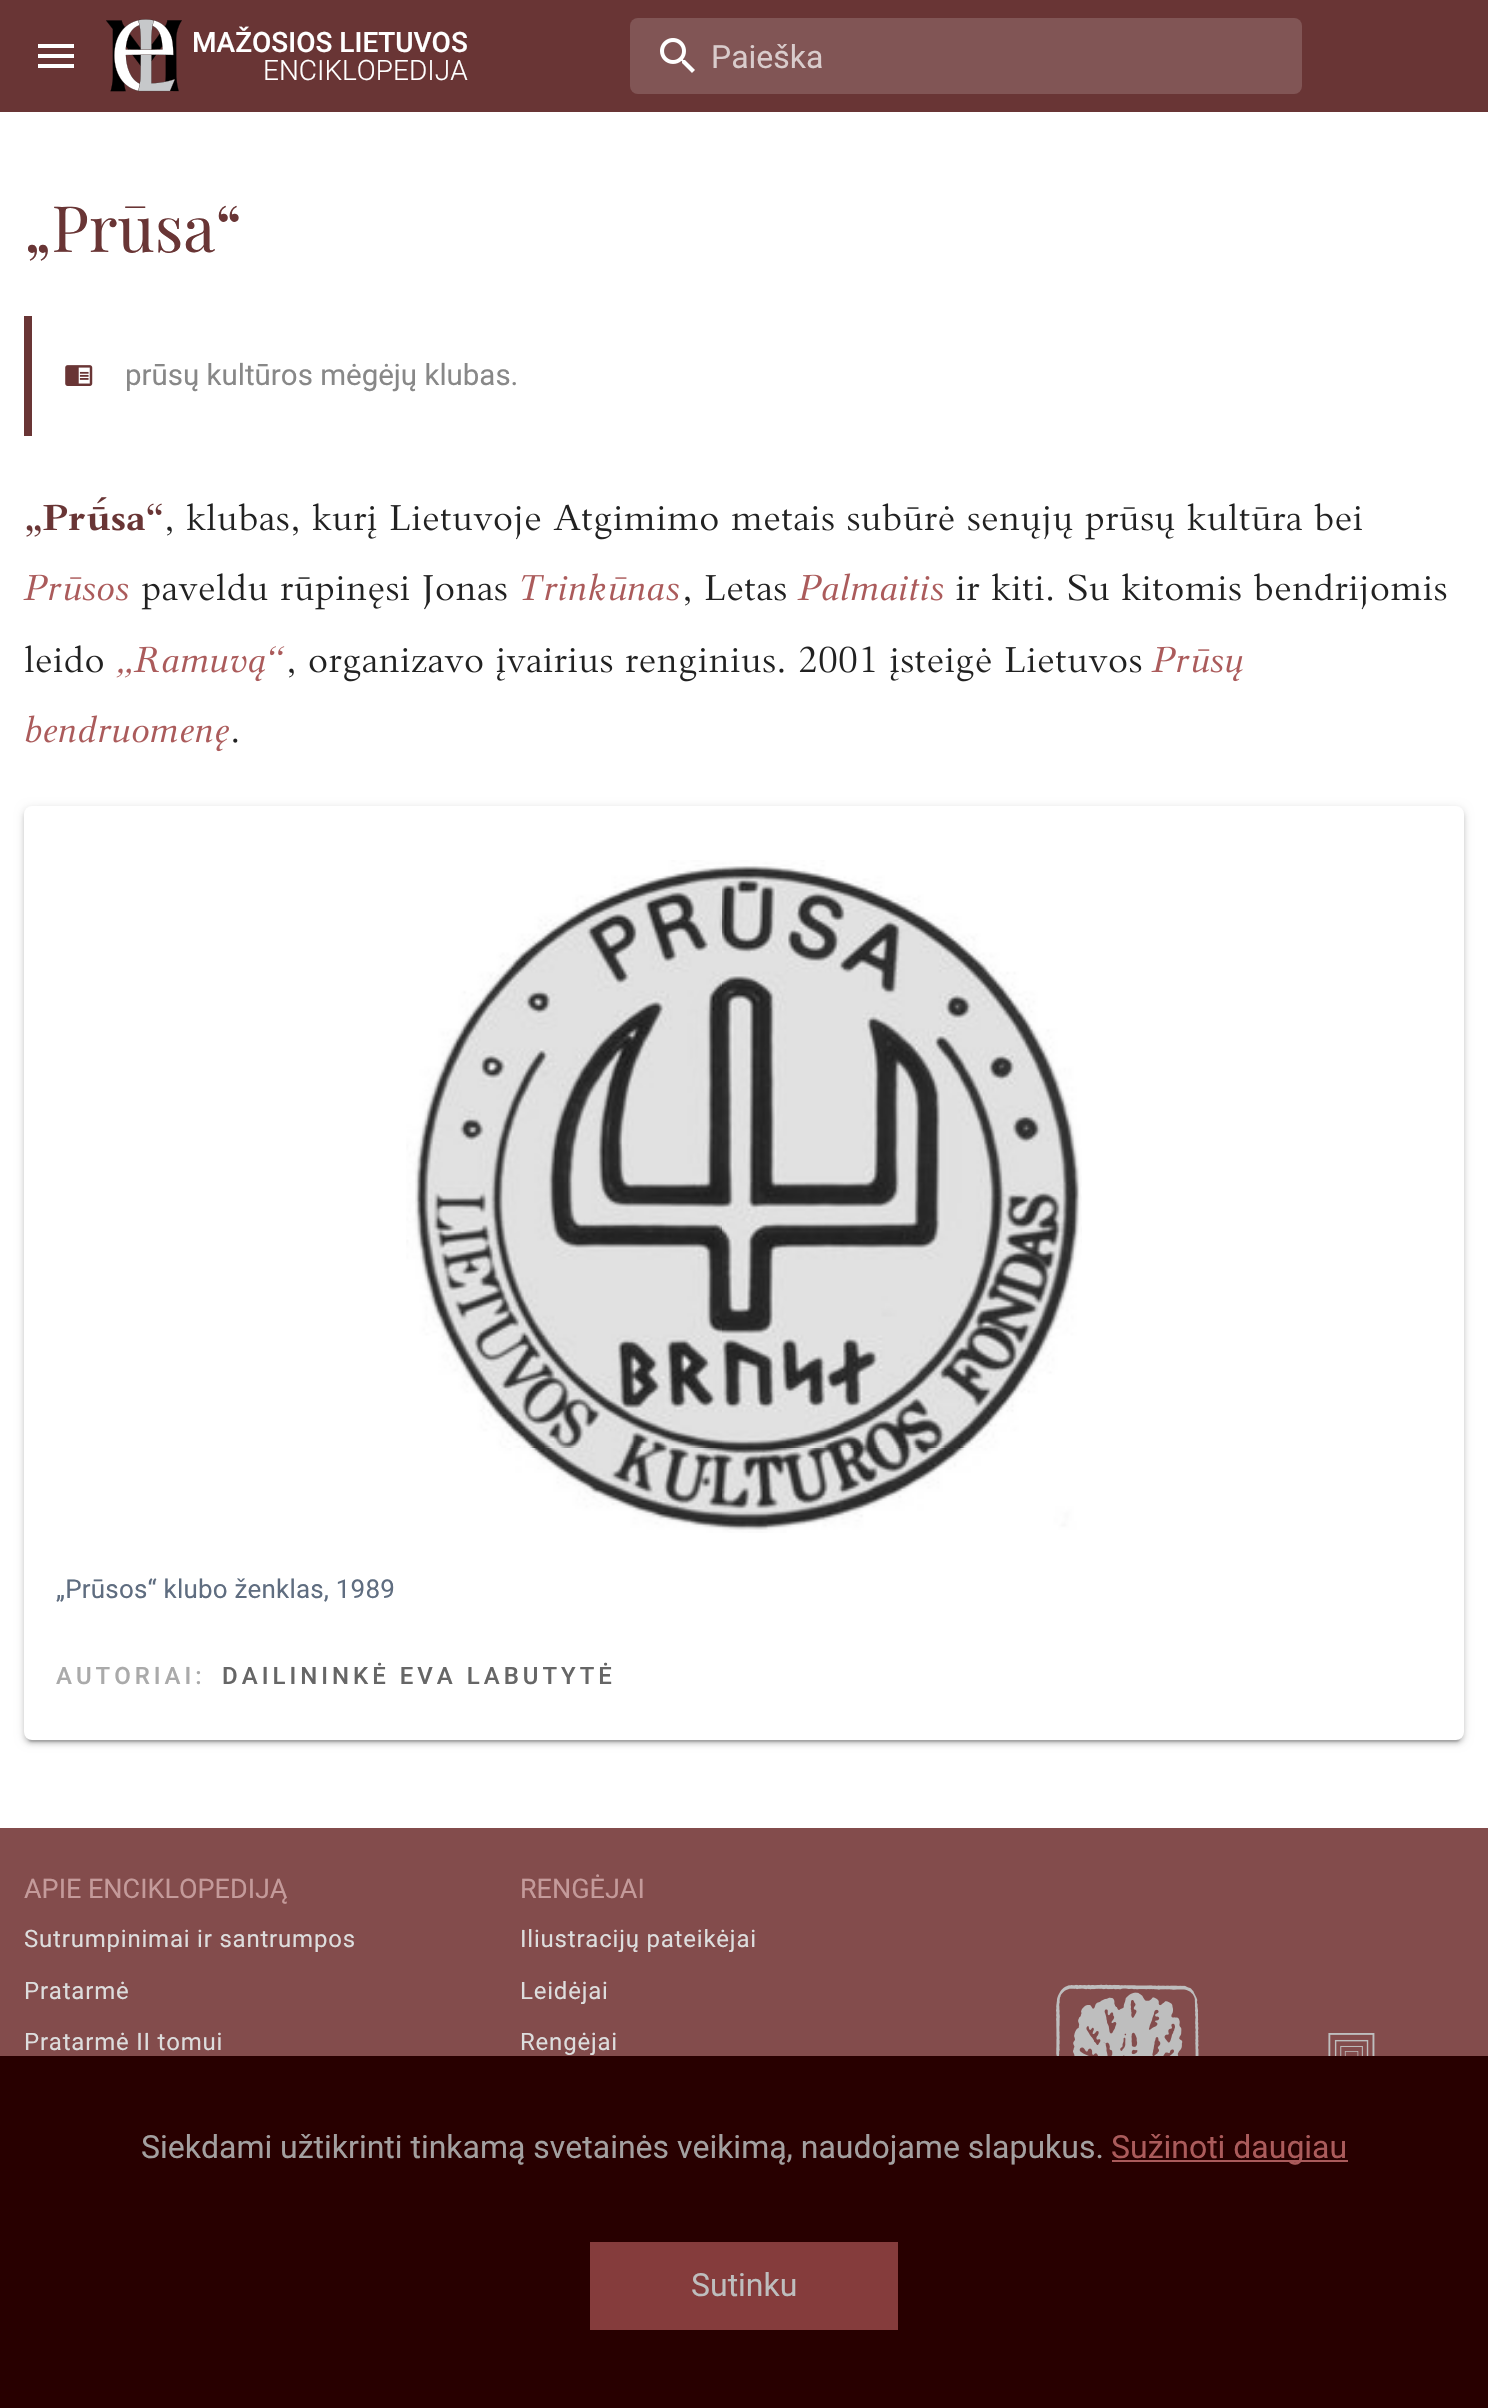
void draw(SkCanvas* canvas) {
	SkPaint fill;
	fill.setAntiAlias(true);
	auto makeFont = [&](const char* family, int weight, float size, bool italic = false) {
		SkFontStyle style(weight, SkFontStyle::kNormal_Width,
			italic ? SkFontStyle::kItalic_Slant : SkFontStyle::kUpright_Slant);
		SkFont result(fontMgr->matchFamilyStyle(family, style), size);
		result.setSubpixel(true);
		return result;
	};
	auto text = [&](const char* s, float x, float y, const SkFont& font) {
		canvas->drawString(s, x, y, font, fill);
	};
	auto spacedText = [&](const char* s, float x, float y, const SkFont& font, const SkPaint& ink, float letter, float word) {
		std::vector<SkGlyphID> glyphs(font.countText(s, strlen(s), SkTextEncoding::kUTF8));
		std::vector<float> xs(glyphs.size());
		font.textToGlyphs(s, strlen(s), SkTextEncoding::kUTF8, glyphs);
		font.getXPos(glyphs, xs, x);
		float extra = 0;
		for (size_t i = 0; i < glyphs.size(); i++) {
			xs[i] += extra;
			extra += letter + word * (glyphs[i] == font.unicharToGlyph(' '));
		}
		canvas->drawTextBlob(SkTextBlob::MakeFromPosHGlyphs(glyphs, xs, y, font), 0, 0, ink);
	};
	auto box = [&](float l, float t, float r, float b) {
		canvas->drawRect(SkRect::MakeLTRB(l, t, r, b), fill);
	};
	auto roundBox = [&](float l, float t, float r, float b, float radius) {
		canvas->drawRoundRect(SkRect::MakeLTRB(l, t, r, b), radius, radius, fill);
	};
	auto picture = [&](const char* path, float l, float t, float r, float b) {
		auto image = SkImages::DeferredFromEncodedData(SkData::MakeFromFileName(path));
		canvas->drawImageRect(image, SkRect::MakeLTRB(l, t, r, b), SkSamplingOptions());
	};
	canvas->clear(0xFFFFFFFF);
	fill.setColor(0xFF693535);
	box(0, 0, 1488, 112);
	fill.setColor(0xFFFFFFFF);
	canvas->drawPath(SkPathBuilder().moveTo(38, 44).lineTo(74, 44).lineTo(74, 48).lineTo(38, 48).close().moveTo(38, 54).lineTo(74, 54).lineTo(74, 58).lineTo(38, 58).close().moveTo(38, 64).lineTo(74, 64).lineTo(74, 68).lineTo(38, 68).close().detach(), fill);
	picture("image0.png", 106, 19, 182, 92);
	fill.setColor(0xFF815555);
	roundBox(630, 18, 1302, 94, 8);
	picture("image1.png", 660, 38, 695, 73);
	fill.setColor(0xFF693535);
	box(24, 316, 32, 436);
	picture("image2.png", 65, 365, 93, 386);
	picture("image3.png", 26, 497, 162, 537);
	picture("image4.png", 167, 526, 172, 536);
	picture("image5.png", 187, 503, 289, 531);
	picture("image6.png", 293, 503, 1362, 540);
	picture("image7.png", 23, 574, 128, 601);
	picture("image8.png", 141, 573, 507, 610);
	picture("image9.png", 521, 573, 679, 601);
	picture("image10.png", 685, 575, 786, 606);
	picture("image11.png", 797, 573, 943, 601);
	picture("image12.png", 956, 573, 1447, 610);
	picture("image13.png", 25, 645, 103, 673);
	picture("image14.png", 116, 646, 285, 682);
	picture("image15.png", 289, 646, 1142, 682);
	picture("image16.png", 1151, 646, 1243, 682);
	picture("image17.png", 25, 715, 229, 752);
	picture("image18.png", 233, 738, 238, 743);
	fill.setColor(0x1F000000);
	fill.setMaskFilter(SkMaskFilter::MakeBlur(kNormal_SkBlurStyle, 5));
	canvas->drawRoundRect(SkRect::MakeLTRB(24, 808, 1464, 1742), 8, 8, fill);
	fill.setMaskFilter(nullptr);
	fill.setColor(0x24000000);
	fill.setMaskFilter(SkMaskFilter::MakeBlur(kNormal_SkBlurStyle, 2));
	canvas->drawRoundRect(SkRect::MakeLTRB(24, 810, 1464, 1744), 8, 8, fill);
	fill.setMaskFilter(nullptr);
	fill.setColor(0x33000000);
	fill.setMaskFilter(SkMaskFilter::MakeBlur(kNormal_SkBlurStyle, 1));
	canvas->drawRoundRect(SkRect::MakeLTRB(28, 816, 1460, 1742), 4, 4, fill);
	fill.setMaskFilter(nullptr);
	fill.setColor(0xFFFFFFFF);
	roundBox(24, 806, 1464, 1740, 8);
	picture("image19.png", 406, 860, 1082, 1533);
	fill.setColor(0xFF834C4C);
	box(0, 1828, 1488, 2056);
	picture("image20.png", 1056, 1984, 1199, 2056);
	picture("image21.png", 1328, 2033, 1375, 2056);
	fill.setColor(0xFF280000);
	box(0, 2056, 1488, 2408);
	fill.setColor(0xFFAB5B5B);
	box(1112, 2160, 1348, 2162);
	fill.setColor(0xFF853C3C);
	box(590, 2242, 898, 2330);
	auto font1 = makeFont("Roboto", 500, 28);
	fill.setColor(0xFFFFFFFF);
	text("MAŽOSIOS LIETUVOS", 192, 52, font1);
	auto font2 = makeFont("Roboto", 300, 28);
	text("ENCIKLOPEDIJA", 263, 80, font2);
	auto font3 = makeFont("Roboto", 400, 32);
	fill.setColor(0xFFD9CCCC);
	text("Paieška", 711, 68, font3);
	auto font4 = makeFont("Playfair Display", 400, 64);
	fill.setColor(0xFF693535);
	text("„Prūsa“", 24, 252, font4);
	auto font5 = makeFont("Roboto", 400, 29.5f);
	fill.setColor(0xFF888888);
	text("prūsų kultūros mėgėjų klubas.", 125, 385, font5);
	auto font6 = makeFont("Roboto", 400, 26);
	fill.setColor(0xFF5F6D80);
	spacedText("„Prūsos“ klubo ženklas, 1989", 56, 1598, font6, fill, 0.2f, 0);
	auto font7 = makeFont("Roboto", 500, 24);
	fill.setColor(0xFFAAAAAA);
	spacedText("AUTORIAI:", 56, 1684, font7, fill, 4, 0);
	fill.setColor(0xFF666666);
	spacedText("DAILININKĖ EVA LABUTYTĖ", 222, 1684, font7, fill, 4, 0);
	auto font8 = makeFont("Roboto", 400, 27);
	fill.setColor(0xFFC49A9A);
	text("APIE ENCIKLOPEDIJĄ", 24, 1898, font8);
	auto font9 = makeFont("Roboto", 400, 24);
	fill.setColor(0xFFDDDDDD);
	spacedText("Sutrumpinimai ir santrumpos", 24, 1947, font9, fill, 0.8f, 0);
	spacedText("Pratarmė", 24, 1999, font9, fill, 0.8f, 0);
	spacedText("Pratarmė II tomui", 24, 2050, font9, fill, 0.8f, 0);
	fill.setColor(0xFFC49A9A);
	text("RENGĖJAI", 520, 1898, font8);
	fill.setColor(0xFFDDDDDD);
	spacedText("Iliustracijų pateikėjai", 520, 1947, font9, fill, 0.8f, 0);
	spacedText("Leidėjai", 520, 1999, font9, fill, 0.8f, 0);
	spacedText("Rengėjai", 520, 2050, font9, fill, 0.8f, 0);
	fill.setColor(0xFFA3A0A0);
	text("Siekdami užtikrinti tinkamą svetainės veikimą, naudojame slapukus.", 141, 2158, font3);
	fill.setColor(0xFFAB5B5B);
	text("Sužinoti daugiau", 1111, 2158, font3);
	fill.setColor(0xFFBEBEBE);
	text("Sutinku", 691, 2296, font3);
}
